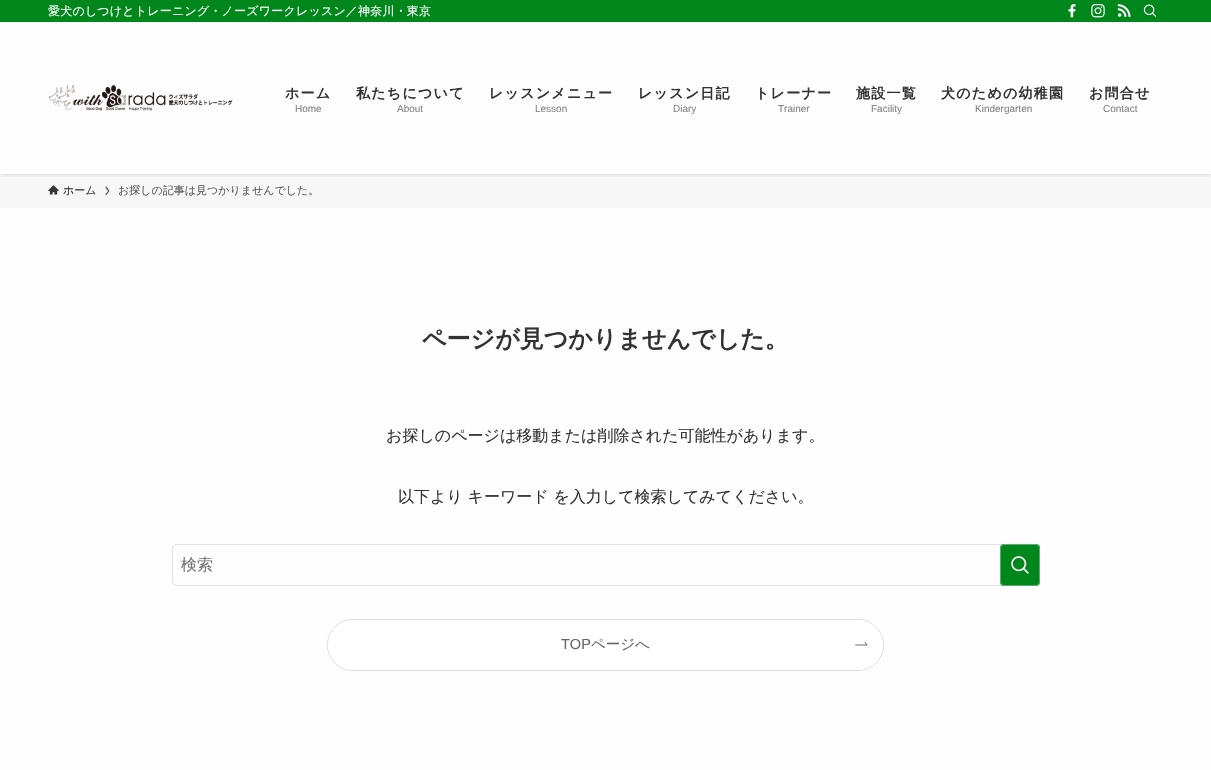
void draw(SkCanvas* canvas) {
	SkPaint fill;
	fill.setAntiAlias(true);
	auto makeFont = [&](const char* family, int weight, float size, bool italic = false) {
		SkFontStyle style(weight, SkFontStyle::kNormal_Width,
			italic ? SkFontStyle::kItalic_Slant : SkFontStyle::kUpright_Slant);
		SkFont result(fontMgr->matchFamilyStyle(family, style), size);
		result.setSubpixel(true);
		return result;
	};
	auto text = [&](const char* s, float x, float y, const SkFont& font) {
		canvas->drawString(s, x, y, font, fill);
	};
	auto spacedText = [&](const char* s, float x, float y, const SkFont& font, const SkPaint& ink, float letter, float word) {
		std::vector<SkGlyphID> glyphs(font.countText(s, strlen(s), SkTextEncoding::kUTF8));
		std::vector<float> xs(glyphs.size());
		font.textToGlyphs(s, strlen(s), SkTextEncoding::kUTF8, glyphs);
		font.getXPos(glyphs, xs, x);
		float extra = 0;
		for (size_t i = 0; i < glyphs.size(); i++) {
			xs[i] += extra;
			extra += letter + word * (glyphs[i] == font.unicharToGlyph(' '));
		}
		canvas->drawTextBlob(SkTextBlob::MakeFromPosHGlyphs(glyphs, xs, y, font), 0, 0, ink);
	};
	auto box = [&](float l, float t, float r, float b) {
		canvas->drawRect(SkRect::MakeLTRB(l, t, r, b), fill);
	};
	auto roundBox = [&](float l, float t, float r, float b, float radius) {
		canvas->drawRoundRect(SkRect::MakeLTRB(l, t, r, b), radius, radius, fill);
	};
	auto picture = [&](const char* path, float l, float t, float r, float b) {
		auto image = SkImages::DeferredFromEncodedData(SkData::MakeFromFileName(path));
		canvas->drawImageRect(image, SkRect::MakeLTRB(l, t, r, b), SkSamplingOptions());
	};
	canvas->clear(0xFFFDFDFD);
	fill.setColor(0xFFF7F7F7);
	box(0, 174, 1211, 208);
	canvas->save();
	canvas->clipRect(SkRect::MakeLTRB(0, 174, 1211, 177));
	fill.setColor(0x1F000000);
	fill.setMaskFilter(SkMaskFilter::MakeBlur(kNormal_SkBlurStyle, 2));
	canvas->drawRect(SkRect::MakeLTRB(0, 1, 1211, 175), fill);
	fill.setMaskFilter(nullptr);
	canvas->restore();
	fill.setColor(0xFF00871B);
	box(0, 0, 1211, 22);
	picture("image0.png", 1068, 4, 1076, 18);
	picture("image1.png", 1091, 4, 1105, 18);
	picture("image2.png", 1117, 4, 1131, 17);
	picture("image3.png", 1143, 4, 1157, 17);
	picture("image4.png", 48, 85, 233, 111);
	picture("image5.png", 48, 185, 59, 195);
	fill.setColor(0xFF5A5A5A);
	canvas->drawPath(SkPathBuilder().moveTo(106.5f, 186.5f).lineTo(105, 187).lineTo(108, 191).lineTo(105, 195).lineTo(106.5f, 195).lineTo(109.5f, 191).close().detach(), fill);
	fill.setStyle(SkPaint::kStroke_Style);
	fill.setStrokeWidth(1);
	fill.setColor(0xFFE3E3E3);
	canvas->drawRoundRect(SkRect::MakeLTRB(172.5f, 544.5f, 1039.5f, 585.5f), 3.5f, 3.5f, fill);
	fill.setStyle(SkPaint::kFill_Style);
	fill.setColor(0xFF00871B);
	roundBox(1000, 544, 1040, 586, 4);
	fill.setStyle(SkPaint::kStroke_Style);
	fill.setColor(0x80C7C7C7);
	canvas->drawRoundRect(SkRect::MakeLTRB(1000.5f, 544.5f, 1039.5f, 585.5f), 3.5f, 3.5f, fill);
	picture("image6.png", 1011, 556, 1029, 574);
	fill.setColor(0xFFDCDCDC);
	canvas->drawRoundRect(SkRect::MakeLTRB(327.5f, 619.5f, 883.5f, 670.5f), 25.5f, 25.5f, fill);
	fill.setStyle(SkPaint::kFill_Style);
	fill.setColor(0xFFFFFFFF);
	roundBox(328, 620, 883, 670, 25);
	picture("image7.png", 855, 642, 868, 646);
	auto font1 = makeFont("WenQuanYi Zen Hei", 500, 12);
	spacedText("愛犬のしつけとトレーニング・ノーズワークレッスン／神奈川・東京", 48, 15, font1, fill, 0.2f, 0);
	auto font2 = makeFont("WenQuanYi Zen Hei", 700, 14);
	fill.setColor(0xFF333333);
	spacedText("ホーム", 285, 98, font2, fill, 1.25f, 0);
	auto font3 = makeFont("Liberation Sans", 400, 10);
	fill.setColor(0xFF848484);
	text("Home", 295, 112, font3);
	fill.setColor(0xFF333333);
	spacedText("私たちについて", 356, 98, font2, fill, 1.25f, 0);
	fill.setColor(0xFF848484);
	text("About", 397, 112, font3);
	fill.setColor(0xFF333333);
	spacedText("レッスンメニュー", 489, 98, font2, fill, 1.25f, 0);
	fill.setColor(0xFF848484);
	text("Lesson", 535, 112, font3);
	fill.setColor(0xFF333333);
	spacedText("レッスン日記", 638, 98, font2, fill, 1.25f, 0);
	fill.setColor(0xFF848484);
	text("Diary", 673, 112, font3);
	fill.setColor(0xFF333333);
	spacedText("トレーナー", 755, 98, font2, fill, 1.25f, 0);
	fill.setColor(0xFF848484);
	text("Trainer", 778, 112, font3);
	fill.setColor(0xFF333333);
	spacedText("施設一覧", 856, 98, font2, fill, 1.25f, 0);
	fill.setColor(0xFF848484);
	text("Facility", 871, 112, font3);
	fill.setColor(0xFF333333);
	spacedText("犬のための幼稚園", 941, 98, font2, fill, 1.25f, 0);
	fill.setColor(0xFF848484);
	text("Kindergarten", 975, 112, font3);
	fill.setColor(0xFF333333);
	spacedText("お問合せ", 1089, 98, font2, fill, 1.25f, 0);
	fill.setColor(0xFF848484);
	text("Contact", 1103, 112, font3);
	auto font4 = makeFont("WenQuanYi Zen Hei", 500, 11);
	fill.setColor(0xFF333333);
	text("ホーム", 63, 194, font4);
	fill.setColor(0xFF5A5A5A);
	text("お探しの記事は見つかりませんでした。", 118, 194, font4);
	auto font5 = makeFont("WenQuanYi Zen Hei", 700, 24);
	fill.setColor(0xFF333333);
	text("ページが見つかりませんでした。", 422, 347, font5);
	auto font6 = makeFont("WenQuanYi Zen Hei", 500, 16);
	text("お探しのページは移動または削除された可能性があります。", 386, 441, font6);
	text("以下より キーワード を入力して検索してみてください。", 398, 502, font6);
	fill.setColor(0xFF757575);
	text("検索", 181, 570, font6);
	auto font7 = makeFont("Liberation Sans", 400, 14.5f);
	fill.setColor(0xFF666666);
	text("TOP", 561, 649, font7);
	auto font8 = makeFont("WenQuanYi Zen Hei", 500, 14.5f);
	text("ページへ", 591, 649, font8);
}
